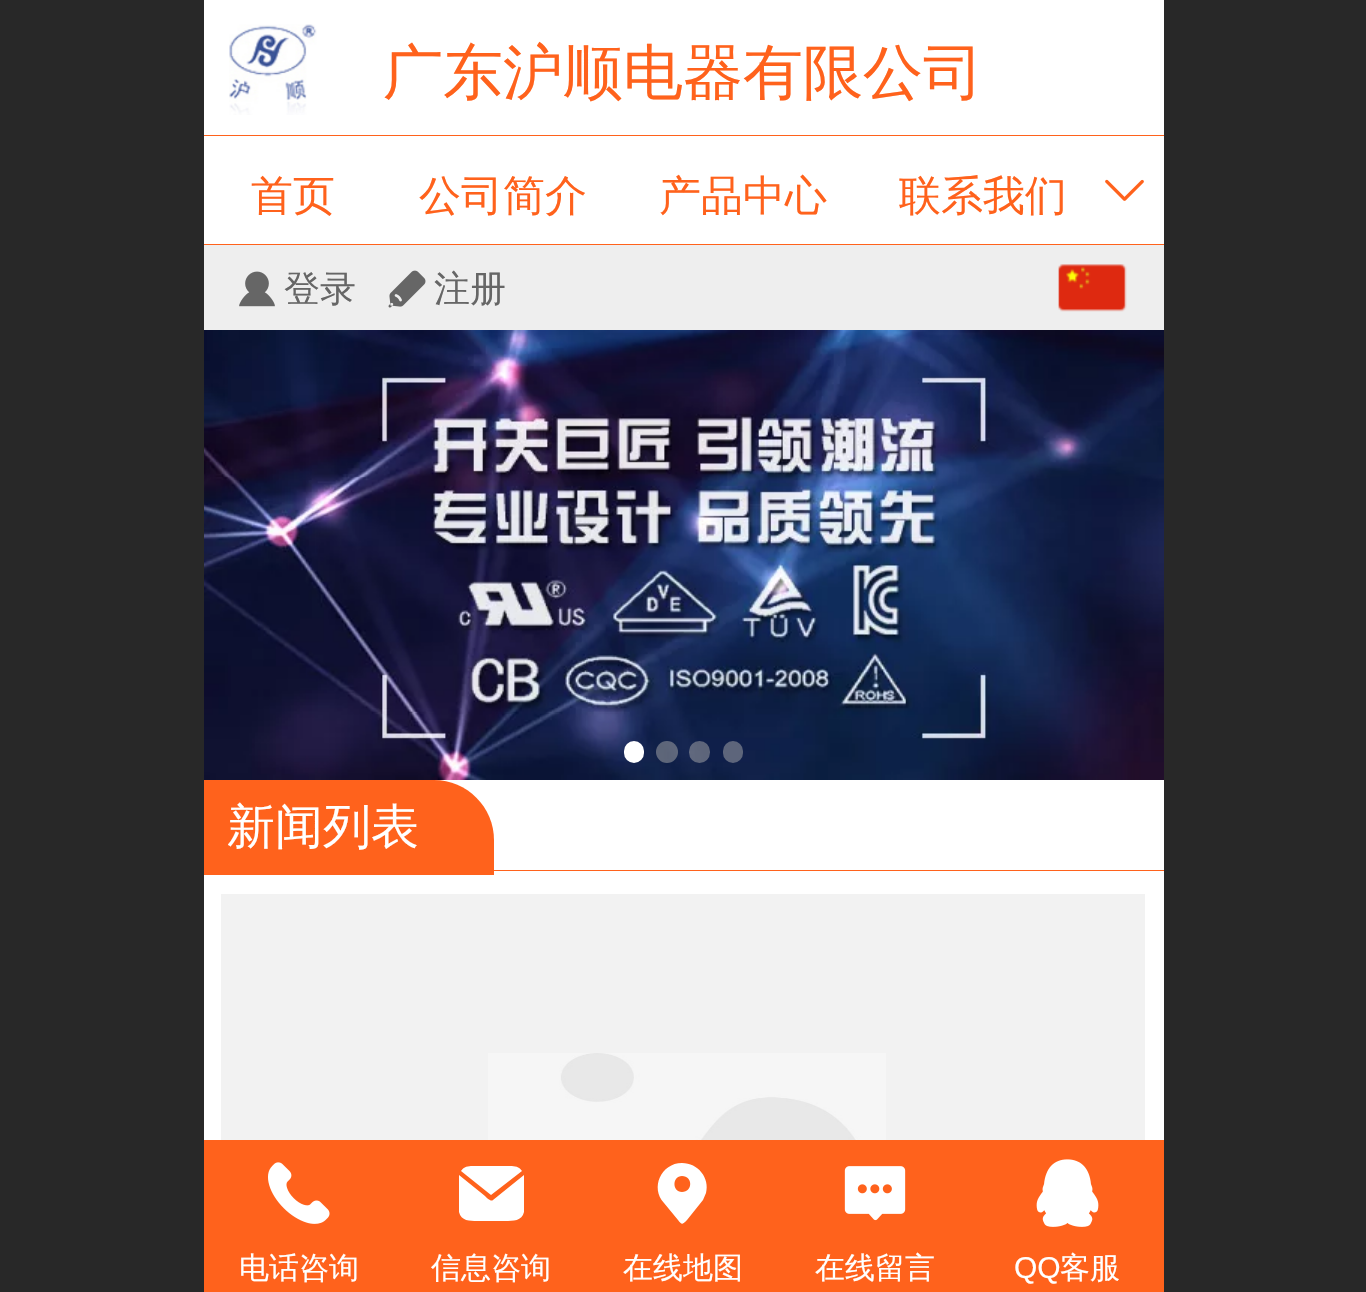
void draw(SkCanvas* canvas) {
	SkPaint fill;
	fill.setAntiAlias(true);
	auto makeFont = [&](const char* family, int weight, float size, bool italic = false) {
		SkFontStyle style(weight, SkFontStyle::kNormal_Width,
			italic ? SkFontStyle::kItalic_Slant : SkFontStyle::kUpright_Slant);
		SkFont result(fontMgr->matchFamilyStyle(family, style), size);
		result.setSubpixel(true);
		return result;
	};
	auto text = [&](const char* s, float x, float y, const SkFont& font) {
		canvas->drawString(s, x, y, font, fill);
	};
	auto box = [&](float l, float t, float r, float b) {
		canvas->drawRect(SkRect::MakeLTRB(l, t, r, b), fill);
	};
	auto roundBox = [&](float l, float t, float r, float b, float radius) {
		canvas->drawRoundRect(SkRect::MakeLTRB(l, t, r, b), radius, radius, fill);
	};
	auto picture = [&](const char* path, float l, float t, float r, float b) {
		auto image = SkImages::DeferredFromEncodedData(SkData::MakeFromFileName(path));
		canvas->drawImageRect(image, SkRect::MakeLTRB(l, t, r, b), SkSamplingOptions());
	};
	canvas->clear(0xFFFFFFFF);
	fill.setColor(0xFF282828);
	box(0, 0, 204, 1292);
	fill.setColor(0xFFFF621C);
	box(204, 135, 1164, 136);
	picture("image0.png", 229, 24, 317, 115);
	box(204, 244, 1164, 245);
	picture("image1.png", 1105, 179, 1144, 201);
	fill.setColor(0xFFEEEEEE);
	box(204, 245, 1164, 330);
	picture("image2.png", 239, 271, 275, 307);
	picture("image3.png", 388, 270, 426, 308);
	picture("image4.png", 1058, 264, 1127, 312);
	picture("image5.png", 204, 330, 1164, 780);
	fill.setColor(0xFFFFFFFF);
	roundBox(624, 741, 644, 763, 10);
	fill.setColor(0x80ABABAB);
	canvas->drawCircle(667, 752, 11, fill);
	roundBox(689, 741, 710, 763, 10.5f);
	fill.setColor(0xFF5D657B);
	roundBox(723, 741, 743, 763, 10);
	fill.setColor(0xFFFF621C);
	box(494, 870, 1164, 871);
	canvas->drawPath(SkPathBuilder().moveTo(204, 780).lineTo(434, 780).cubicTo(467, 780, 494, 807, 494, 840).lineTo(494, 875).lineTo(204, 875).close().detach(), fill);
	fill.setColor(0xFFF2F2F2);
	box(221, 894, 1145, 1140);
	picture("image6.png", 488, 1053, 886, 1140);
	fill.setColor(0xFFFF621C);
	box(204, 1140, 1164, 1292);
	picture("image7.png", 268, 1162, 330, 1224);
	fill.setColor(0xFFFFFFFF);
	canvas->drawPath(SkPathBuilder().moveTo(491, 1195).lineTo(522, 1171).cubicTo(518, 1165, 512, 1166, 505, 1166).lineTo(477, 1166).cubicTo(471, 1166, 465, 1165, 461, 1171).close().moveTo(493, 1200).cubicTo(491, 1202, 487, 1198, 485, 1196).lineTo(459, 1175).lineTo(459, 1212).cubicTo(461, 1221, 470, 1221, 477, 1221).lineTo(505, 1221).cubicTo(513, 1221, 522, 1221, 524, 1212).lineTo(524, 1175).close().detach(), fill);
	canvas->drawPath(SkPathBuilder().moveTo(682, 1163).cubicTo(661, 1163, 650, 1188, 664, 1203).lineTo(678, 1220).cubicTo(682, 1225, 682, 1225, 687, 1220).lineTo(703, 1200).lineTo(706, 1193).cubicTo(710, 1178, 698, 1163, 682, 1163).close().moveTo(682, 1192).cubicTo(672, 1192, 672, 1176, 682, 1176).cubicTo(693, 1176, 693, 1192, 682, 1192).close().detach(), fill);
	picture("image8.png", 844, 1166, 906, 1221);
	picture("image9.png", 1036, 1159, 1099, 1227);
	fill.setColor(0xFF282828);
	box(1164, 0, 1366, 1292);
	auto font1 = makeFont("WenQuanYi Zen Hei", 500, 60);
	fill.setColor(0xFFFF621C);
	text("广东沪顺电器有限公司", 383, 93, font1);
	auto font2 = makeFont("WenQuanYi Zen Hei", 500, 42);
	text("首页", 251, 210, font2);
	text("公司简介", 419, 210, font2);
	text("产品中心", 659, 210, font2);
	text("联系我们", 899, 210, font2);
	auto font3 = makeFont("WenQuanYi Zen Hei", 500, 36);
	fill.setColor(0xFF666666);
	text("登录", 284, 301, font3);
	text("注册", 434, 301, font3);
	auto font4 = makeFont("WenQuanYi Zen Hei", 500, 48);
	fill.setColor(0xFFFFFFFF);
	text("新闻列表", 227, 843, font4);
	auto font5 = makeFont("WenQuanYi Zen Hei", 500, 30);
	text("电话咨询", 239, 1278, font5);
	text("信息咨询", 431, 1278, font5);
	text("在线地图", 623, 1278, font5);
	text("在线留言", 815, 1278, font5);
	auto font6 = makeFont("Liberation Sans", 400, 30);
	text("QQ", 1014, 1278, font6);
	text("客服", 1060, 1278, font5);
}
